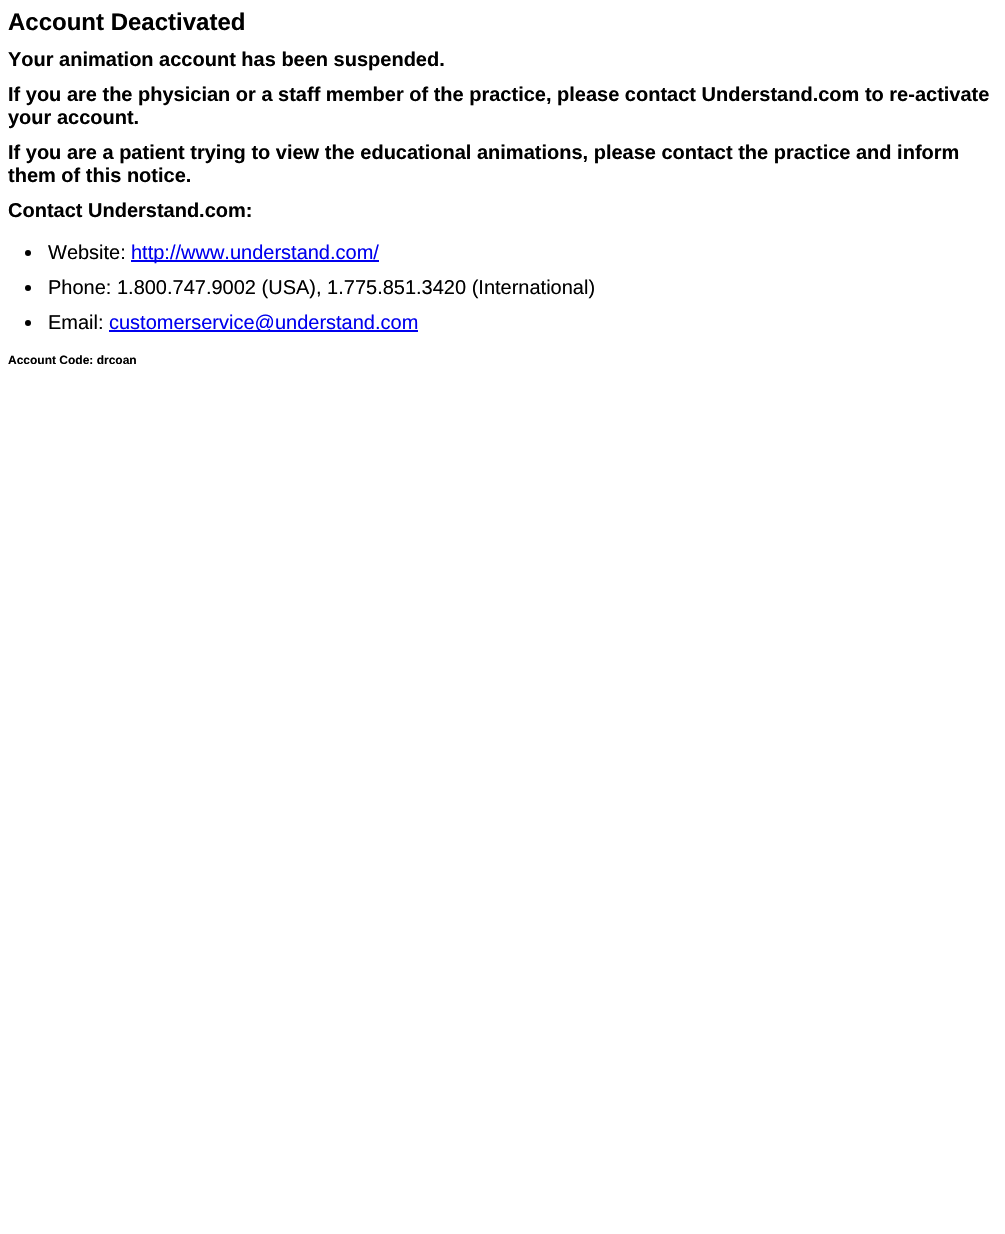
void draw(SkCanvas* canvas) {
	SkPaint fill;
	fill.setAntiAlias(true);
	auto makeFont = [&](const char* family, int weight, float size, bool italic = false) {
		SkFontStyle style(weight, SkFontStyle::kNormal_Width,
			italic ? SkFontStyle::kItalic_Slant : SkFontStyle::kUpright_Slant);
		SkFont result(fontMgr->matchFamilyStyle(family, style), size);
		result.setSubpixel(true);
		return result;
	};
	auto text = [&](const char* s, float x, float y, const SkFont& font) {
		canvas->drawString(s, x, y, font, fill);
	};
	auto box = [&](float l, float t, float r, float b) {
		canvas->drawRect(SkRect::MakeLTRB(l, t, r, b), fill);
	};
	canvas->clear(0xFFFFFFFF);
	fill.setColor(0xFF000000);
	canvas->drawCircle(28, 253, 3, fill);
	fill.setColor(0xFF0000EE);
	box(131, 260, 379, 262);
	fill.setColor(0xFF000000);
	canvas->drawCircle(28, 288, 3, fill);
	canvas->drawCircle(28, 323, 3, fill);
	fill.setColor(0xFF0000EE);
	box(109, 330, 418, 332);
	auto font1 = makeFont("Liberation Sans", 700, 24);
	fill.setColor(0xFF000000);
	text("Account Deactivated", 8, 30, font1);
	auto font2 = makeFont("Liberation Sans", 700, 20);
	text("Your animation account has been suspended.", 8, 66, font2);
	text("If you are the physician or a staff member of the practice, please contact Understand.com to re-activate", 8, 101, font2);
	text("your account.", 8, 124, font2);
	text("If you are a patient trying to view the educational animations, please contact the practice and inform", 8, 159, font2);
	text("them of this notice.", 8, 182, font2);
	text("Contact Understand.com:", 8, 217, font2);
	auto font3 = makeFont("Liberation Sans", 400, 20);
	text("Website:", 48, 259, font3);
	fill.setColor(0xFF0000EE);
	text("http://www.understand.com/", 131, 259, font3);
	fill.setColor(0xFF000000);
	text("Phone: 1.800.747.9002 (USA), 1.775.851.3420 (International)", 48, 294, font3);
	text("Email:", 48, 329, font3);
	fill.setColor(0xFF0000EE);
	text("customerservice@understand.com", 109, 329, font3);
	auto font4 = makeFont("Liberation Sans", 700, 12);
	fill.setColor(0xFF000000);
	text("Account Code: drcoan", 8, 364, font4);
}
